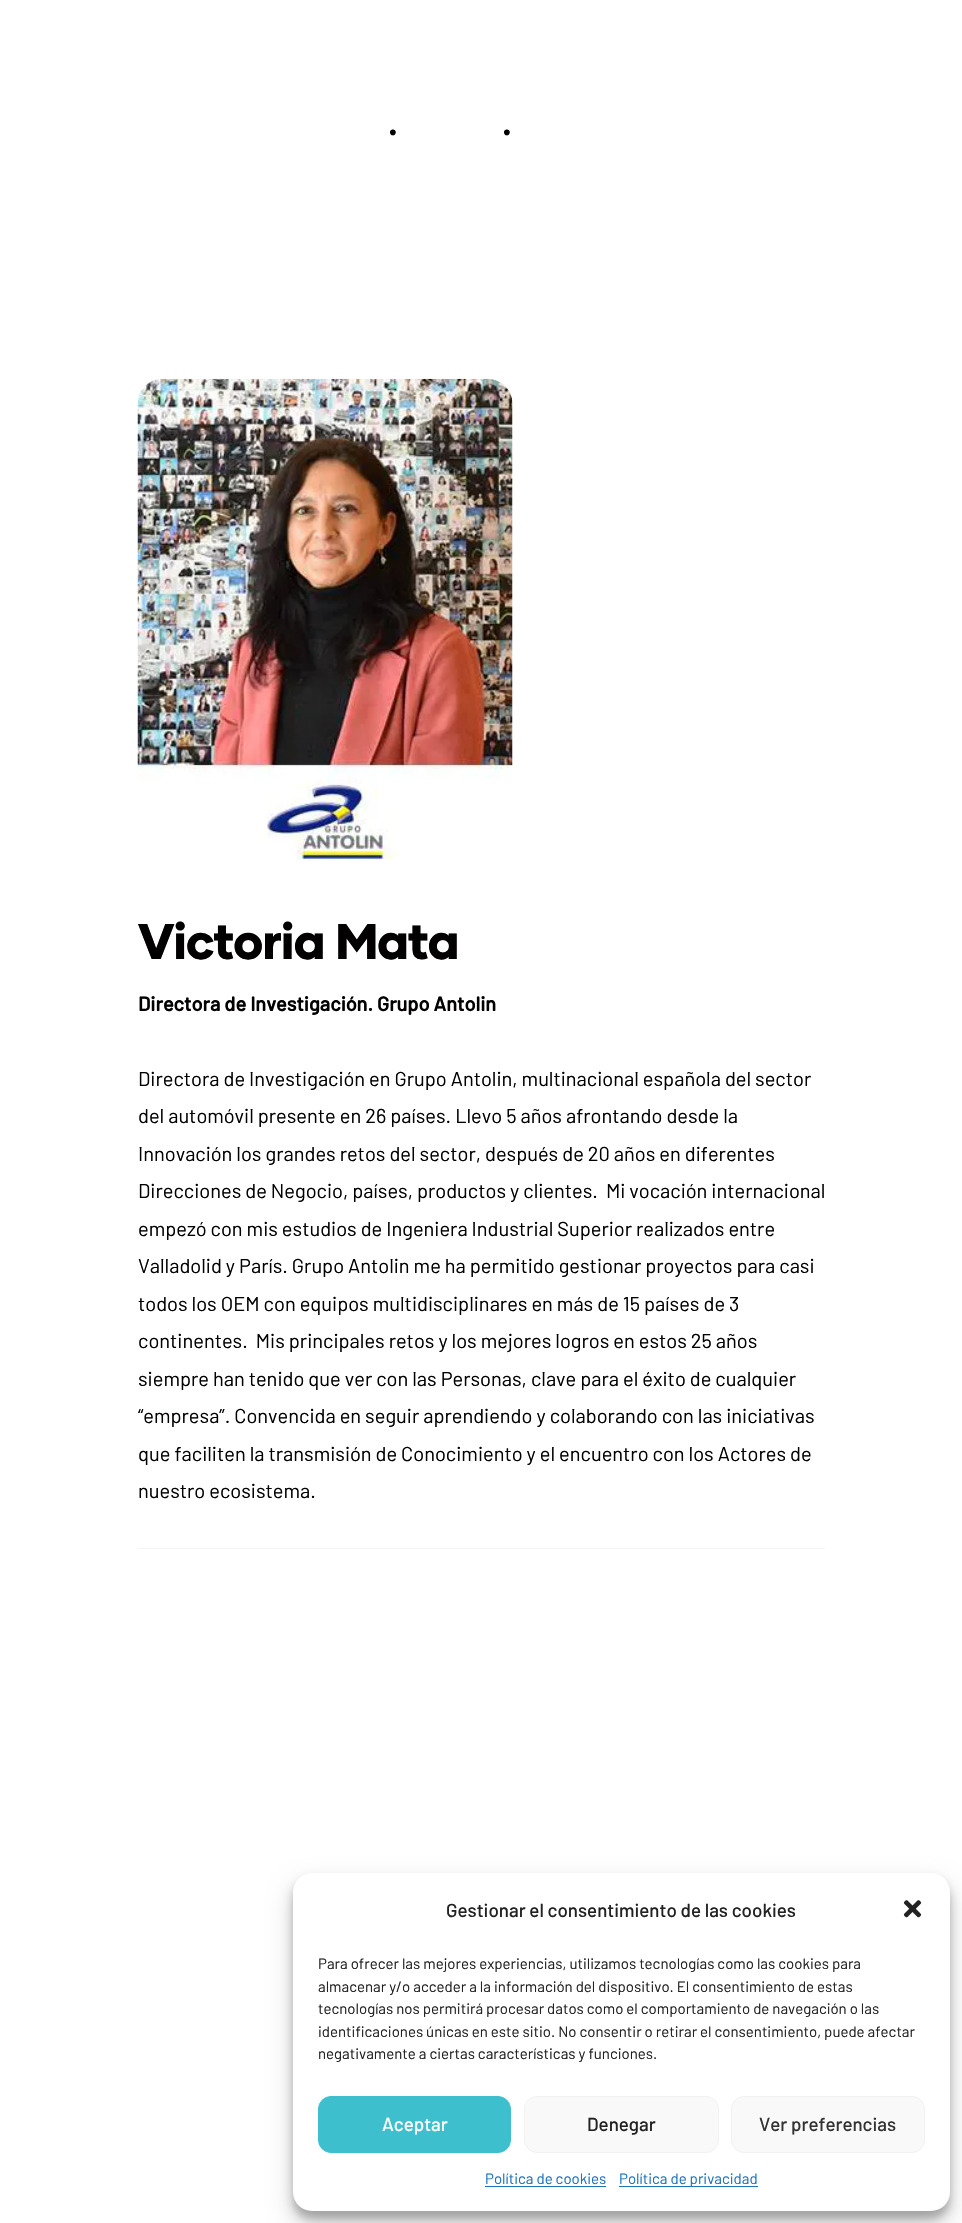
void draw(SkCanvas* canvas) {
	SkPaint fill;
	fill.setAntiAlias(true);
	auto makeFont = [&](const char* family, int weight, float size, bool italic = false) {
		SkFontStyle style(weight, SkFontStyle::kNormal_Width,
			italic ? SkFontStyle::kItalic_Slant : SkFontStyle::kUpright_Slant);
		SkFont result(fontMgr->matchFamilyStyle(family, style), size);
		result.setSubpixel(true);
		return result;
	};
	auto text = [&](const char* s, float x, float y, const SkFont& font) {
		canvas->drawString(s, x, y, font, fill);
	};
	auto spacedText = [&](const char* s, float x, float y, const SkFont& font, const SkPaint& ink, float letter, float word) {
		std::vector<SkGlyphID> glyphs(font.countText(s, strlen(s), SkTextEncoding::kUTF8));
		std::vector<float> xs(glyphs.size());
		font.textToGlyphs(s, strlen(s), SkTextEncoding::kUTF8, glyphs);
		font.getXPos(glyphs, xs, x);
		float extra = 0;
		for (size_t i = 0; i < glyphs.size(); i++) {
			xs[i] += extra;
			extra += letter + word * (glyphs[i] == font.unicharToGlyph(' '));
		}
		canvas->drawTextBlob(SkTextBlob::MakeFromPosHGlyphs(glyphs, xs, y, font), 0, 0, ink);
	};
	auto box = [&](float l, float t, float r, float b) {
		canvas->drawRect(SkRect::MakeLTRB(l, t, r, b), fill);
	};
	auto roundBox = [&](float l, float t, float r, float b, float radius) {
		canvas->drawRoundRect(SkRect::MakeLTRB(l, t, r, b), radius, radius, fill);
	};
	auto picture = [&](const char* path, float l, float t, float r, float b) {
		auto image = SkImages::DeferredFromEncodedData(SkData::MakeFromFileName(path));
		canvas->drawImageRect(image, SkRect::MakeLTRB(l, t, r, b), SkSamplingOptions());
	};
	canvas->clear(0xFFFFFFFF);
	picture("image0.png", 137, 378, 513, 860);
	fill.setColor(0xFFF4F4F4);
	box(138, 1548, 825, 1549);
	fill.setColor(0x3B000000);
	fill.setMaskFilter(SkMaskFilter::MakeBlur(kNormal_SkBlurStyle, 4));
	canvas->drawRoundRect(SkRect::MakeLTRB(293, 1880, 950, 2219), 19, 19, fill);
	fill.setMaskFilter(nullptr);
	fill.setColor(0x30000000);
	fill.setMaskFilter(SkMaskFilter::MakeBlur(kNormal_SkBlurStyle, 12.5f));
	canvas->drawRoundRect(SkRect::MakeLTRB(293, 1885, 950, 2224), 19, 19, fill);
	fill.setMaskFilter(nullptr);
	fill.setColor(0xFFFFFFFF);
	roundBox(293, 1873, 950, 2211, 19);
	picture("image1.png", 903, 1900, 922, 1918);
	fill.setColor(0xFF3EBFCE);
	canvas->drawRoundRect(SkRect::MakeLTRB(318.5f, 2096.5f, 510.5f, 2152.5f), 12.5f, 12.5f, fill);
	fill.setStyle(SkPaint::kStroke_Style);
	fill.setStrokeWidth(1);
	canvas->drawRoundRect(SkRect::MakeLTRB(318.5f, 2096.5f, 510.5f, 2152.5f), 12.5f, 12.5f, fill);
	fill.setStyle(SkPaint::kFill_Style);
	fill.setColor(0xFFF9F9F9);
	canvas->drawRoundRect(SkRect::MakeLTRB(524.5f, 2096.5f, 718.5f, 2152.5f), 12.5f, 12.5f, fill);
	fill.setStyle(SkPaint::kStroke_Style);
	fill.setColor(0xFFF2F2F2);
	canvas->drawRoundRect(SkRect::MakeLTRB(524.5f, 2096.5f, 718.5f, 2152.5f), 12.5f, 12.5f, fill);
	fill.setStyle(SkPaint::kFill_Style);
	fill.setColor(0xFFF9F9F9);
	canvas->drawRoundRect(SkRect::MakeLTRB(731.5f, 2096.5f, 924.5f, 2152.5f), 12.5f, 12.5f, fill);
	fill.setStyle(SkPaint::kStroke_Style);
	fill.setColor(0xFFF2F2F2);
	canvas->drawRoundRect(SkRect::MakeLTRB(731.5f, 2096.5f, 924.5f, 2152.5f), 12.5f, 12.5f, fill);
	fill.setStyle(SkPaint::kFill_Style);
	fill.setColor(0xFF1E73BE);
	box(485, 2186, 606, 2187);
	box(619, 2186, 758, 2187);
	auto font1 = makeFont("Barlow", 400, 25);
	fill.setColor(0xFF020000);
	text("•", 389, 139, font1);
	text("•", 503, 139, font1);
	auto font2 = makeFont("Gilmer", 900, 50);
	spacedText("Victoria Mata", 138, 959, font2, fill, -1.25f, 0);
	auto font3 = makeFont("Barlow", 700, 20);
	text("Directora de Investigación. Grupo Antolin", 138, 1011, font3);
	auto font4 = makeFont("Barlow", 400, 20);
	text("Directora de Investigación en Grupo Antolin, multinacional española del sector", 138, 1086, font4);
	text("del automóvil presente en 26 países. Llevo 5 años afrontando desde la", 138, 1123, font4);
	text("Innovación los grandes retos del sector, después de 20 años en diferentes", 138, 1161, font4);
	text("Direcciones de Negocio, países, productos y clientes.  Mi vocación internacional", 138, 1198, font4);
	text("empezó con mis estudios de Ingeniera Industrial Superior realizados entre", 138, 1236, font4);
	text("Valladolid y París. Grupo Antolin me ha permitido gestionar proyectos para casi", 138, 1273, font4);
	text("todos los OEM con equipos multidisciplinares en más de 15 países de 3", 138, 1311, font4);
	text("continentes.  Mis principales retos y los mejores logros en estos 25 años", 138, 1348, font4);
	text("siempre han tenido que ver con las Personas, clave para el éxito de cualquier", 138, 1386, font4);
	text("“empresa”. Convencida en seguir aprendiendo y colaborando con las iniciativas", 138, 1423, font4);
	text("que faciliten la transmisión de Conocimiento y el encuentro con los Actores de", 138, 1461, font4);
	text("nuestro ecosistema.", 138, 1498, font4);
	auto font5 = makeFont("Barlow", 500, 18.75f);
	fill.setColor(0xFF222222);
	text("Gestionar el consentimiento de las cookies", 446, 1917, font5);
	auto font6 = makeFont("Barlow", 400, 15);
	text("Para ofrecer las mejores experiencias, utilizamos tecnologías como las cookies para", 318, 1969, font6);
	text("almacenar y/o acceder a la información del dispositivo. El consentimiento de estas", 318, 1992, font6);
	text("tecnologías nos permitirá procesar datos como el comportamiento de navegación o las", 318, 2014, font6);
	text("identificaciones únicas en este sitio. No consentir o retirar el consentimiento, puede afectar", 318, 2037, font6);
	text("negativamente a ciertas características y funciones.", 318, 2059, font6);
	fill.setColor(0xFFFFFFFF);
	text("Aceptar", 382, 2131, font5);
	fill.setColor(0xFF222222);
	text("Denegar", 587, 2131, font5);
	fill.setColor(0xFF333333);
	text("Ver preferencias", 759, 2131, font5);
	fill.setColor(0xFF1E73BE);
	text("Política de cookies", 485, 2184, font6);
	text("Política de privacidad", 619, 2184, font6);
}
